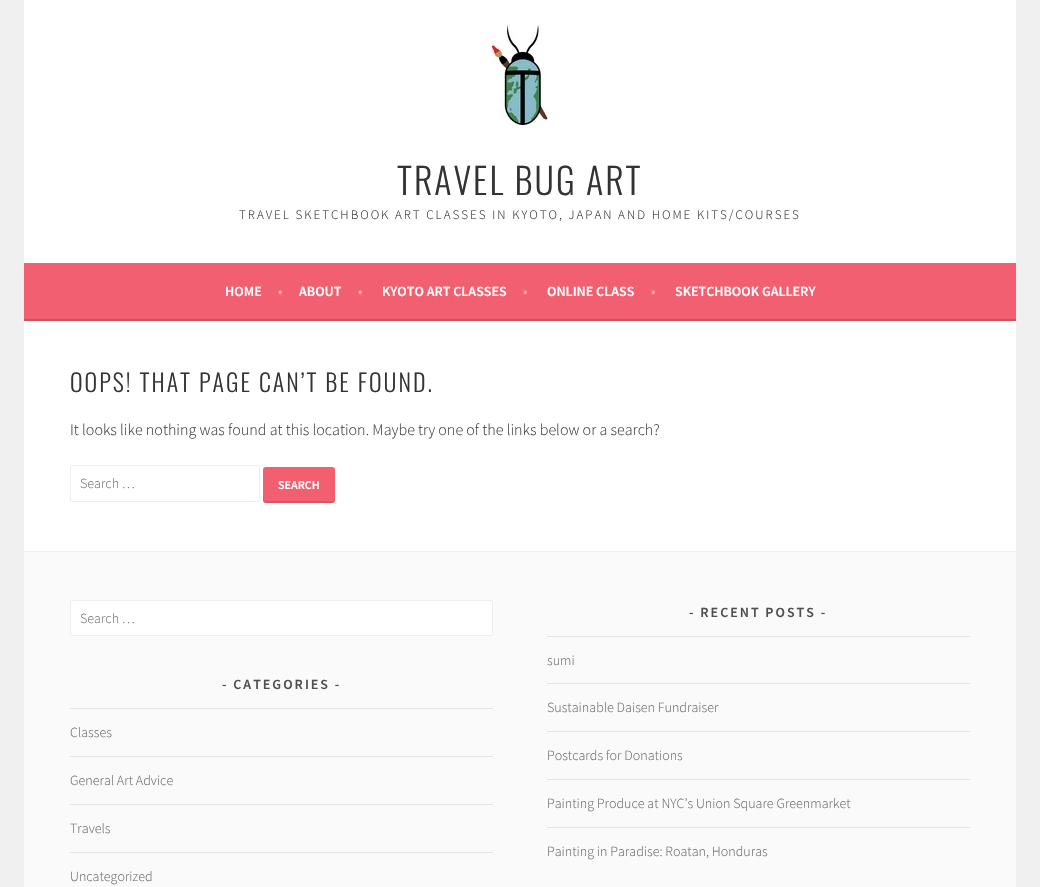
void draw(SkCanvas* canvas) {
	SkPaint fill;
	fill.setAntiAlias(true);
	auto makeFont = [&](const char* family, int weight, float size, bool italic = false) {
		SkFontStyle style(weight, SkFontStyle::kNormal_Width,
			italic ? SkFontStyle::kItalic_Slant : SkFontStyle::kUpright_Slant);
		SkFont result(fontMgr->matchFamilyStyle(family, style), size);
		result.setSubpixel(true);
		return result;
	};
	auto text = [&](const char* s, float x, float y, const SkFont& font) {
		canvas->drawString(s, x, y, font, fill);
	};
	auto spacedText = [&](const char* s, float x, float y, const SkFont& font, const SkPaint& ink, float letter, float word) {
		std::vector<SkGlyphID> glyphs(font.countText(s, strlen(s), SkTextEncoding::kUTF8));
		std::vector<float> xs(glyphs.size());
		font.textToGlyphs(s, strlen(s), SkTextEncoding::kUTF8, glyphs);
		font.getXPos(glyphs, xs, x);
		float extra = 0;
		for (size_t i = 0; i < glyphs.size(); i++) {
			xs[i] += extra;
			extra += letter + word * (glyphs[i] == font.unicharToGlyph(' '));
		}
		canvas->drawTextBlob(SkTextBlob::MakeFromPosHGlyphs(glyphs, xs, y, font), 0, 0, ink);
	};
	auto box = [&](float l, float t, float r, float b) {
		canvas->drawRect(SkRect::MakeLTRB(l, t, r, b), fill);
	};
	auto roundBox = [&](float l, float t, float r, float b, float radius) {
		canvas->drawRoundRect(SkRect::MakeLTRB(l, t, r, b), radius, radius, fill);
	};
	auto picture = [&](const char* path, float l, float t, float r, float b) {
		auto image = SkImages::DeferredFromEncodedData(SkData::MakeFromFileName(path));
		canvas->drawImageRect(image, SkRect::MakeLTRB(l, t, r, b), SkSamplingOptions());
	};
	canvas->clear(0xFFF0F0F0);
	fill.setColor(0xFFFFFFFF);
	box(24, 0, 1016, 263);
	picture("image0.png", 492, 25, 548, 125);
	fill.setColor(0xFFF25F70);
	box(24, 263, 1016, 319);
	fill.setColor(0xFFCE515F);
	box(24, 319, 1016, 321);
	fill.setColor(0xFFFFFFFF);
	box(24, 321, 1016, 551);
	fill.setStyle(SkPaint::kStroke_Style);
	fill.setStrokeWidth(1);
	fill.setColor(0xFFEEEEEE);
	canvas->drawRoundRect(SkRect::MakeLTRB(70.5f, 465.5f, 259.5f, 501.5f), 1.5f, 1.5f, fill);
	fill.setStyle(SkPaint::kFill_Style);
	fill.setColor(0xFFF25F70);
	roundBox(263, 467, 335, 503, 3);
	fill.setColor(0x1A000000);
	canvas->drawPath(SkPathBuilder().moveTo(263, 498).cubicTo(263, 506, 269, 503, 277, 503).lineTo(321, 503).cubicTo(329, 503, 335, 506, 335, 498).cubicTo(335, 500, 334, 501, 332, 501).lineTo(266, 501).cubicTo(264, 501, 263, 500, 263, 498).close().detach(), fill);
	fill.setColor(0xFFFAFAFA);
	box(24, 552, 1016, 887);
	fill.setColor(0xFFFFFFFF);
	canvas->drawRoundRect(SkRect::MakeLTRB(70.5f, 600.5f, 492.5f, 635.5f), 1.5f, 1.5f, fill);
	fill.setStyle(SkPaint::kStroke_Style);
	fill.setColor(0xFFEEEEEE);
	canvas->drawRoundRect(SkRect::MakeLTRB(70.5f, 600.5f, 492.5f, 635.5f), 1.5f, 1.5f, fill);
	fill.setStyle(SkPaint::kFill_Style);
	fill.setColor(0xFFE5E5E5);
	box(70, 708, 493, 709);
	box(70, 756, 493, 757);
	box(70, 804, 493, 805);
	box(70, 852, 493, 853);
	box(547, 636, 970, 637);
	box(547, 683, 970, 684);
	box(547, 731, 970, 732);
	box(547, 779, 970, 780);
	box(547, 827, 970, 828);
	auto font1 = makeFont("Oswald", 300, 36);
	fill.setColor(0xFF333333);
	spacedText("TRAVEL BUG ART", 397, 195, font1, fill, 2, 0);
	auto font2 = makeFont("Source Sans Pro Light", 300, 13);
	spacedText("TRAVEL SKETCHBOOK ART CLASSES IN KYOTO, JAPAN AND HOME KITS/COURSES", 239, 219, font2, fill, 2, 0);
	auto font3 = makeFont("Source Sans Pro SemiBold", 600, 14);
	fill.setColor(0xFFFFFFFF);
	text("HOME", 225, 296, font3);
	fill.setColor(0xFFFFA4AD);
	text("•", 278, 296, font3);
	fill.setColor(0xFFFFFFFF);
	text("ABOUT", 299, 296, font3);
	fill.setColor(0xFFFFA4AD);
	text("•", 358, 296, font3);
	fill.setColor(0xFFFFFFFF);
	text("KYOTO ART CLASSES", 382, 296, font3);
	fill.setColor(0xFFFFA4AD);
	text("•", 523, 296, font3);
	fill.setColor(0xFFFFFFFF);
	text("ONLINE CLASS", 547, 296, font3);
	fill.setColor(0xFFFFA4AD);
	text("•", 651, 296, font3);
	fill.setColor(0xFFFFFFFF);
	text("SKETCHBOOK GALLERY", 675, 296, font3);
	auto font4 = makeFont("Oswald", 300, 24);
	fill.setColor(0xFF333333);
	spacedText("OOPS! THAT PAGE CAN’T BE FOUND.", 70, 392, font4, fill, 2, 0);
	auto font5 = makeFont("Source Sans Pro Light", 300, 16);
	fill.setColor(0xFF404040);
	text("It looks like nothing was found at this location. Maybe try one of the links below or a search?", 70, 435, font5);
	auto font6 = makeFont("Source Sans Pro Light", 300, 14);
	fill.setColor(0xFF757575);
	text("Search …", 80, 488, font6);
	auto font7 = makeFont("Source Sans Pro SemiBold", 600, 12);
	fill.setColor(0xFFFFFFFF);
	text("SEARCH", 278, 489, font7);
	fill.setColor(0xFF757575);
	text("Search …", 80, 623, font6);
	fill.setColor(0xFF4F4F4F);
	spacedText("- CATEGORIES -", 222, 689, font3, fill, 2, 0);
	fill.setColor(0xFF6D6D6D);
	text("Classes", 70, 737, font6);
	text("General Art Advice", 70, 785, font6);
	text("Travels", 70, 833, font6);
	text("Uncategorized", 70, 881, font6);
	fill.setColor(0xFF4F4F4F);
	spacedText("- RECENT POSTS -", 689, 617, font3, fill, 2, 0);
	fill.setColor(0xFF6D6D6D);
	text("sumi", 547, 665, font6);
	text("Sustainable Daisen Fundraiser", 547, 712, font6);
	text("Postcards for Donations", 547, 760, font6);
	text("Painting Produce at NYC’s Union Square Greenmarket", 547, 808, font6);
	text("Painting in Paradise: Roatan, Honduras", 547, 856, font6);
}
